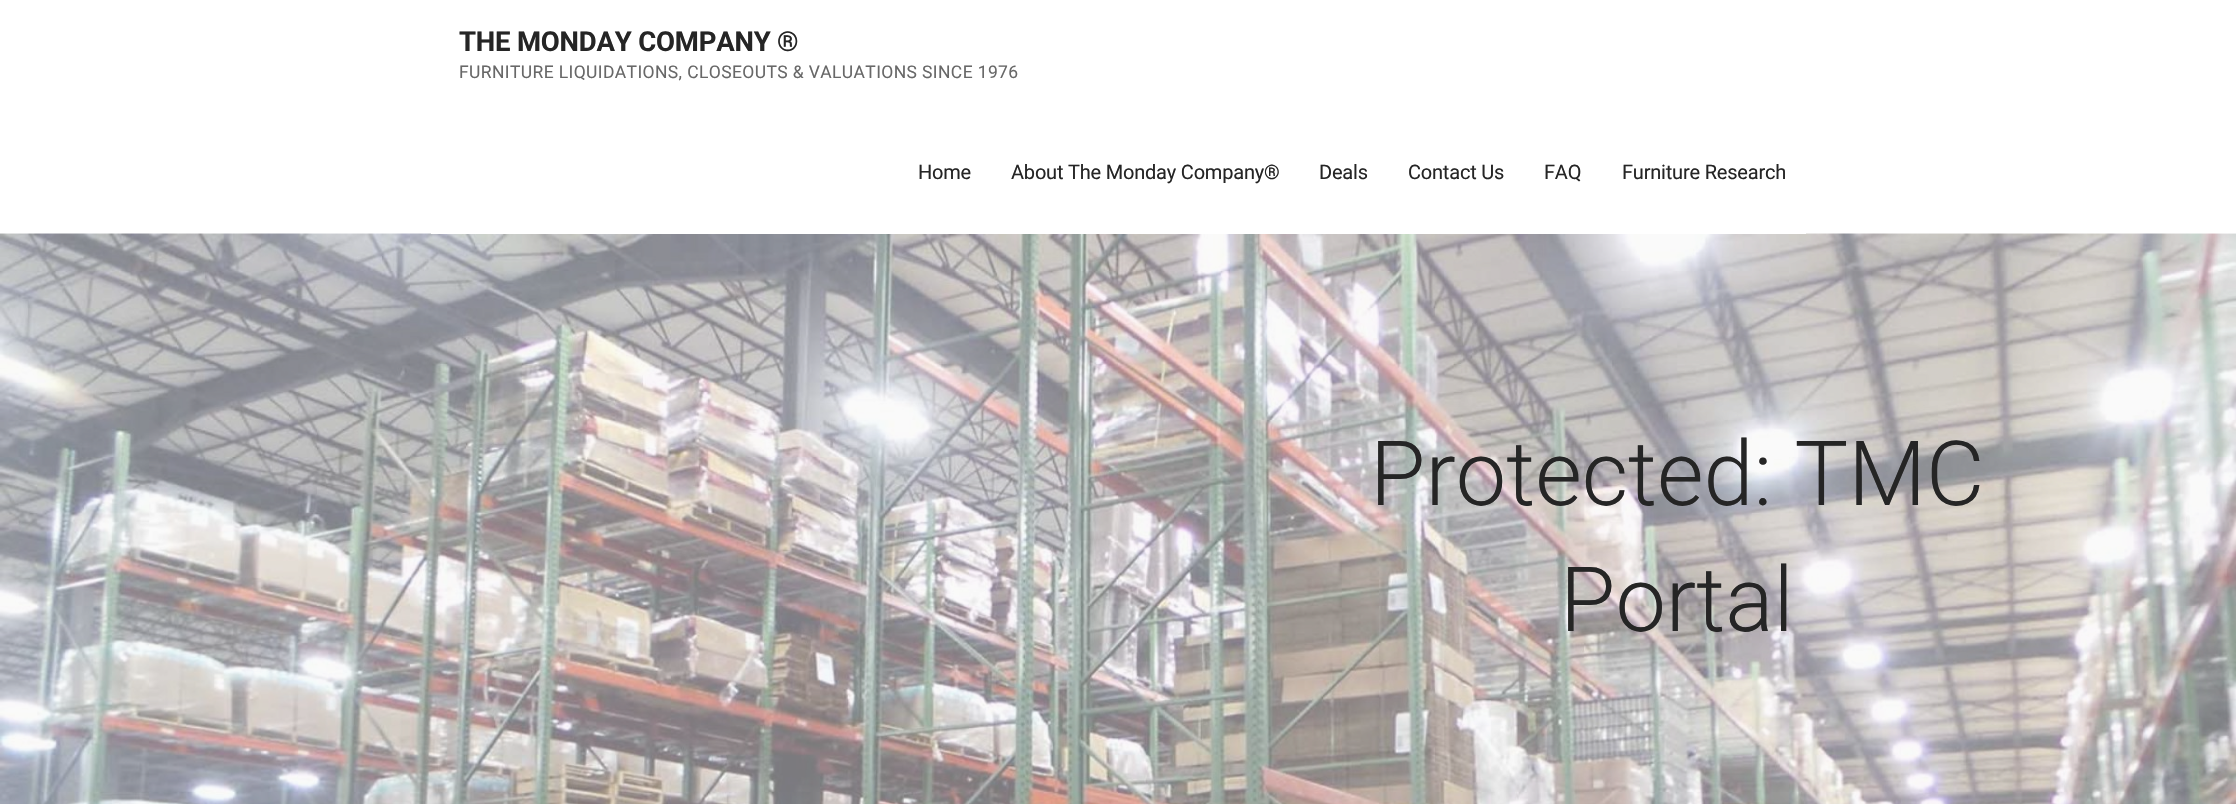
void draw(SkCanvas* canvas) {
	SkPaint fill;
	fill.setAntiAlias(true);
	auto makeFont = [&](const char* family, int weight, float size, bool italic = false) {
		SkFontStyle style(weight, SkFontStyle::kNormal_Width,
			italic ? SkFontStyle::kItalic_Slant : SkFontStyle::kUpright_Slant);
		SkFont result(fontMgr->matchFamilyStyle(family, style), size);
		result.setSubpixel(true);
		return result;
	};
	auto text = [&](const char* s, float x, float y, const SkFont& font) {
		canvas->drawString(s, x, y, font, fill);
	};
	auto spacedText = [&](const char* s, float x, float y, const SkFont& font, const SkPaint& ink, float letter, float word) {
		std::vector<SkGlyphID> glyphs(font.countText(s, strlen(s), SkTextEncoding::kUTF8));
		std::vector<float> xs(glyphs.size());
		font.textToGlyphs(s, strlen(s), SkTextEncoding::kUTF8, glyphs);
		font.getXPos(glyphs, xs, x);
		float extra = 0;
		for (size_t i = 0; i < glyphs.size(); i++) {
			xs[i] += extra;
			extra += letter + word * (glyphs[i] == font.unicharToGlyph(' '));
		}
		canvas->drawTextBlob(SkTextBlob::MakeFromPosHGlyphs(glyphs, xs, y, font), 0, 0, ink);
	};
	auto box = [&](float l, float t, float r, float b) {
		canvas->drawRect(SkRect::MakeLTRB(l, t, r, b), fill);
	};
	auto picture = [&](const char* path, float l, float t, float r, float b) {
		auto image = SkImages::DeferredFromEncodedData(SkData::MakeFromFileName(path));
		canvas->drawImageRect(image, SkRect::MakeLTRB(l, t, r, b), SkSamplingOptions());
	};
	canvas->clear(0xFFFFFFFF);
	picture("image0.png", 0, 233, 2236, 804);
	fill.setColor(0xFFFFFFFF);
	box(431, 233, 1806, 234);
	auto font1 = makeFont("Roboto", 700, 27.5f);
	fill.setColor(0xFF252525);
	spacedText("THE MONDAY COMPANY ®", 459, 51, font1, fill, -0.2f, 0);
	auto font2 = makeFont("Roboto", 400, 17.5f);
	fill.setColor(0xFF686868);
	spacedText("FURNITURE LIQUIDATIONS, CLOSEOUTS & VALUATIONS SINCE 1976", 459, 78, font2, fill, 0.38f, 0);
	auto font3 = makeFont("Roboto", 400, 20);
	fill.setColor(0xFF252525);
	spacedText("Home", 918, 179, font3, fill, -0.2f, 0);
	spacedText("About The Monday Company®", 1011, 179, font3, fill, -0.2f, 0);
	spacedText("Deals", 1319, 179, font3, fill, -0.2f, 0);
	spacedText("Contact Us", 1408, 179, font3, fill, -0.2f, 0);
	spacedText("FAQ", 1544, 179, font3, fill, -0.2f, 0);
	spacedText("Furniture Research", 1622, 179, font3, fill, -0.2f, 0);
	auto font4 = makeFont("Roboto", 300, 90);
	text("Protected: TMC", 1370, 505, font4);
	text("Portal", 1560, 631, font4);
}
